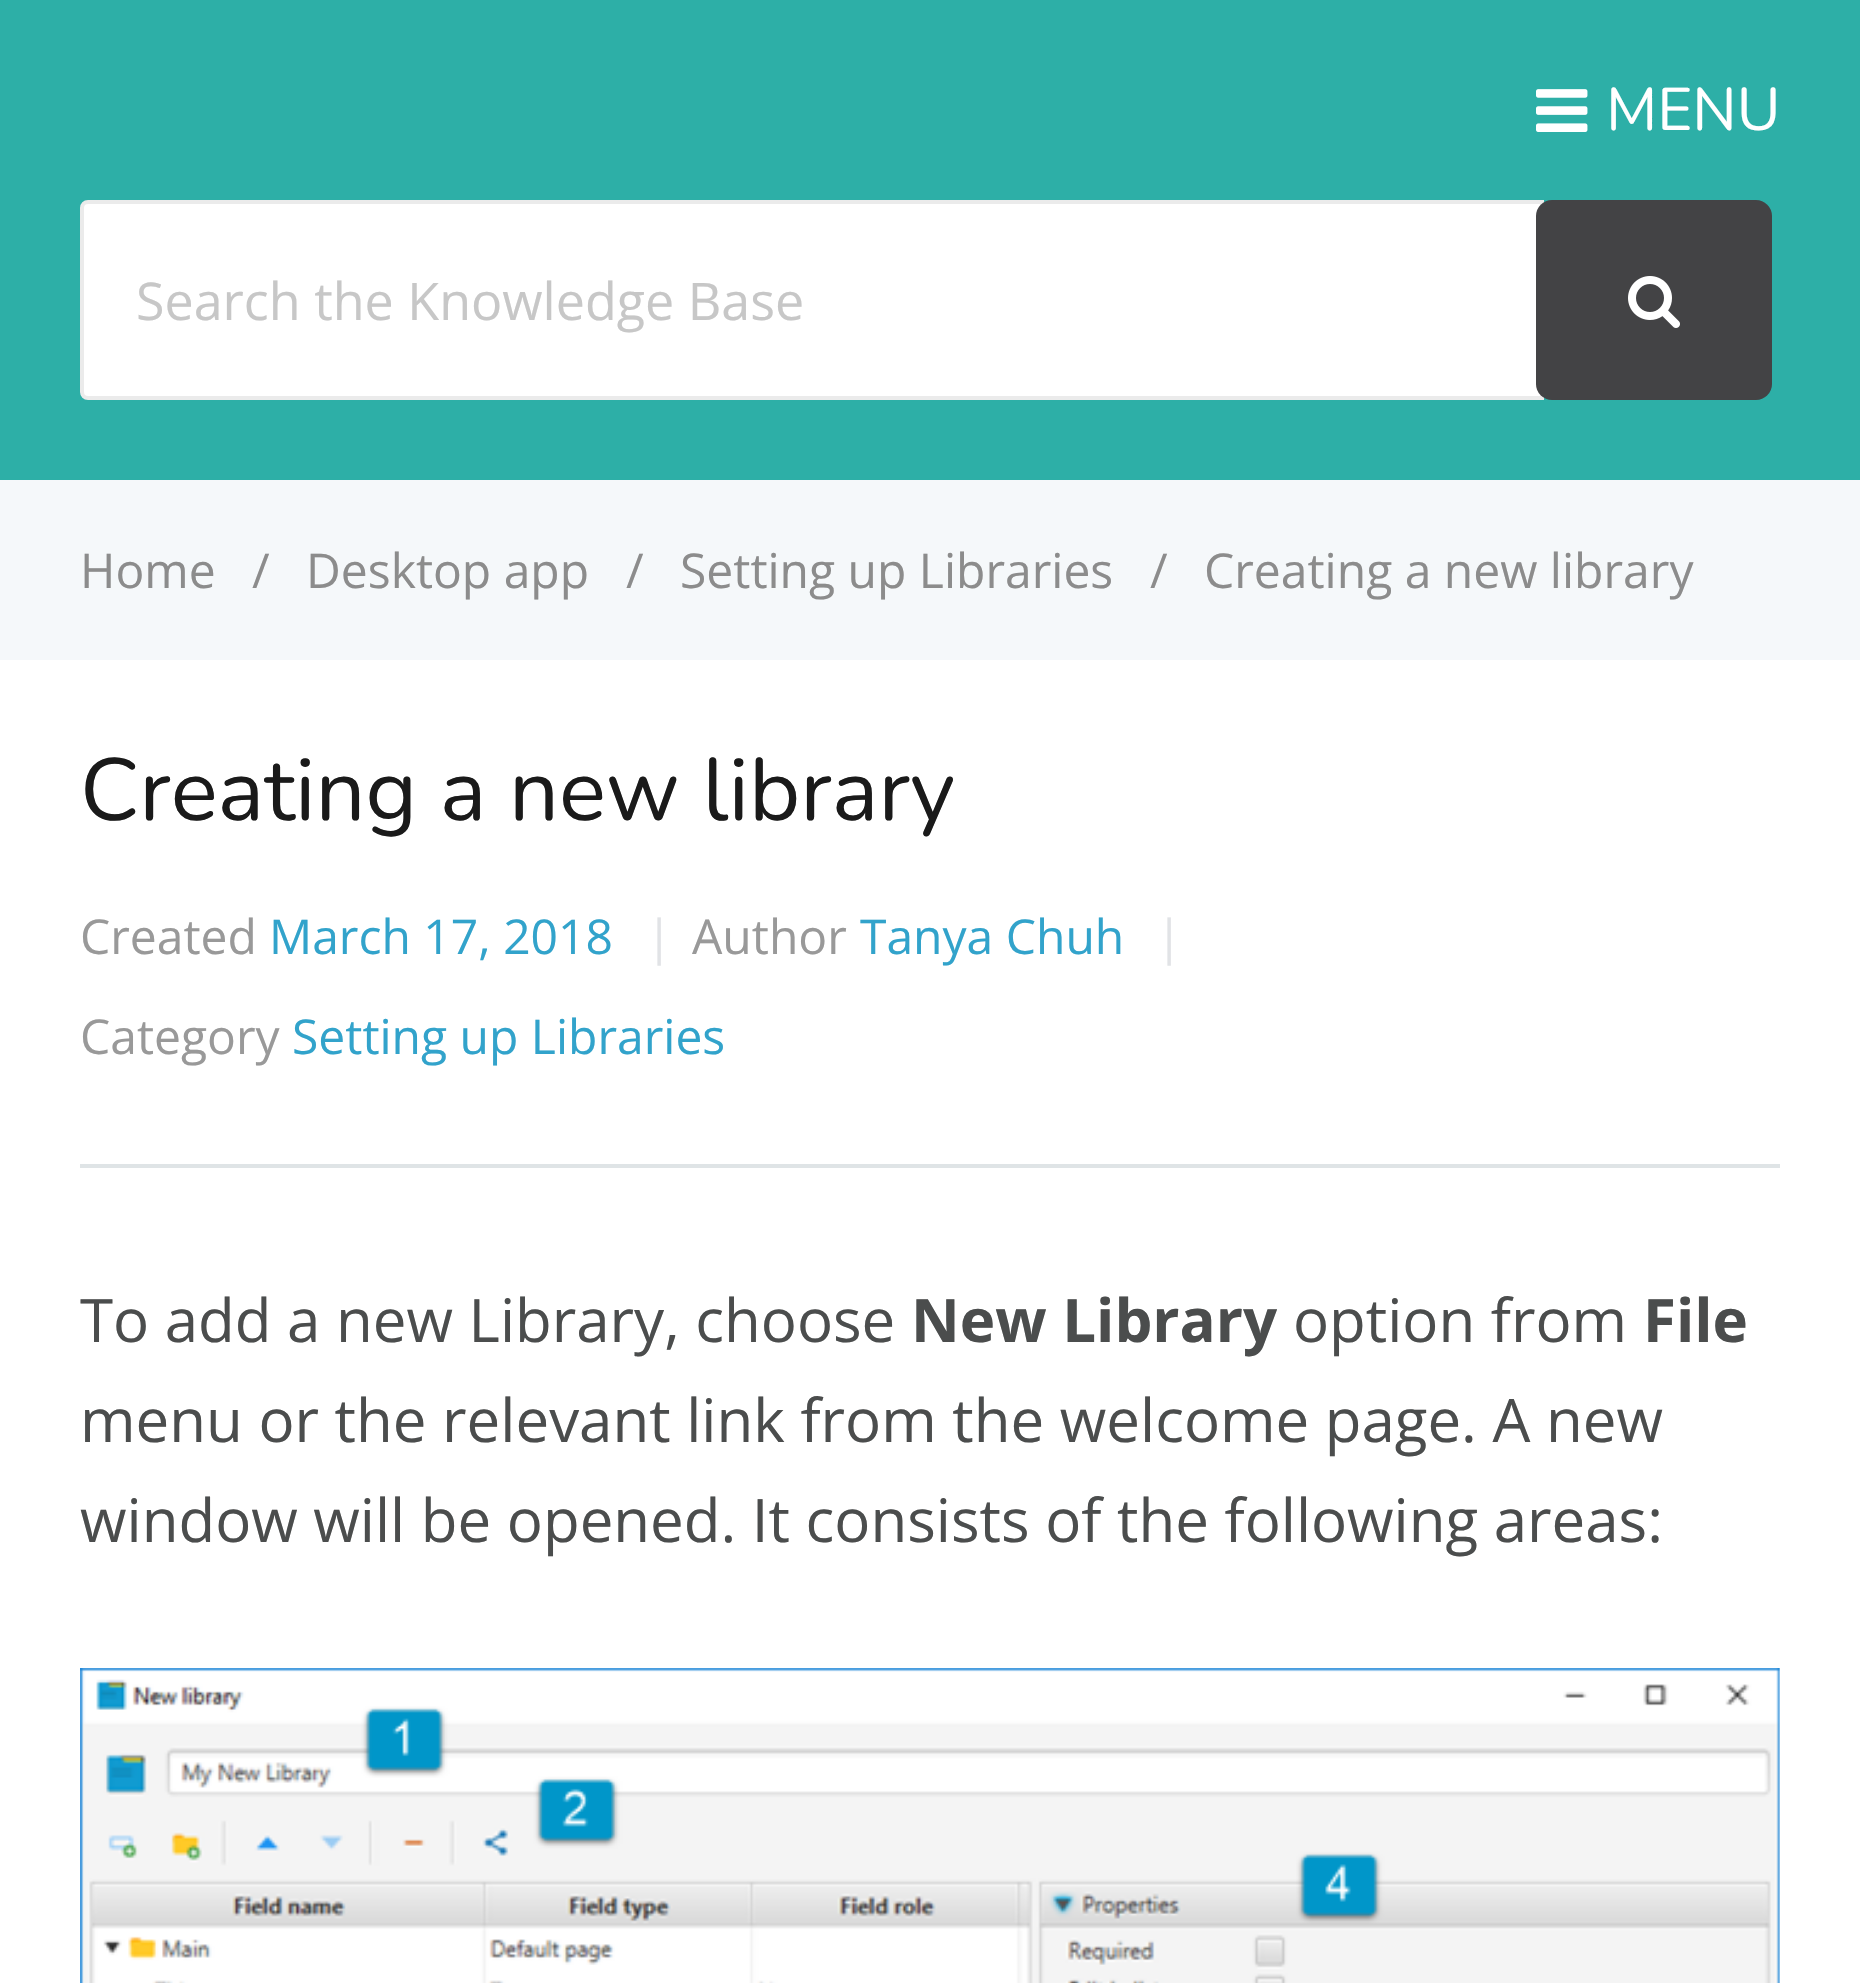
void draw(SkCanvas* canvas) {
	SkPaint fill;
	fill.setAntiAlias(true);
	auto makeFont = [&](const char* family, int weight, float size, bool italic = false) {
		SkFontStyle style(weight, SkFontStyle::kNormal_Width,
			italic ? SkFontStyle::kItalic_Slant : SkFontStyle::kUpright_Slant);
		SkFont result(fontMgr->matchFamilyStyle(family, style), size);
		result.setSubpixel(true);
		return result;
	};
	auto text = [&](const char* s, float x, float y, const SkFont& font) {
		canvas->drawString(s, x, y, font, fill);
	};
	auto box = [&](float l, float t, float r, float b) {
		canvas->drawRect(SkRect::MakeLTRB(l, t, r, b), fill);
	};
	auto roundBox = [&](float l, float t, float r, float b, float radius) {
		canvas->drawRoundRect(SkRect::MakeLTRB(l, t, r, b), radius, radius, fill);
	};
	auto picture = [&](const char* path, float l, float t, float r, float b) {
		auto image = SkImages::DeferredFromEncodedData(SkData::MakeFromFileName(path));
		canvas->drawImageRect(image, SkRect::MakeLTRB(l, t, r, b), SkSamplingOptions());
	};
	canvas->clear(0xFFFFFFFF);
	fill.setColor(0xFF2DAFA7);
	box(0, 0, 1860, 480);
	picture("image0.png", 1536, 89, 1588, 132);
	fill.setColor(0xFFFFFFFF);
	canvas->drawPath(SkPathBuilder().moveTo(88, 202).lineTo(1542, 202).lineTo(1542, 398).lineTo(88, 398).cubicTo(84.5f, 398, 82, 395.5f, 82, 392).lineTo(82, 208).cubicTo(82, 204.5f, 84.5f, 202, 88, 202).close().detach(), fill);
	fill.setStyle(SkPaint::kStroke_Style);
	fill.setStrokeWidth(4);
	fill.setColor(0xFFEBEBEB);
	canvas->drawPath(SkPathBuilder().moveTo(88, 202).lineTo(1542, 202).lineTo(1542, 398).lineTo(88, 398).cubicTo(84.5f, 398, 82, 395.5f, 82, 392).lineTo(82, 208).cubicTo(82, 204.5f, 84.5f, 202, 88, 202).close().detach(), fill);
	fill.setStyle(SkPaint::kFill_Style);
	fill.setColor(0xFF434345);
	roundBox(1536, 200, 1772, 400, 16);
	picture("image1.png", 1628, 276, 1680, 328);
	fill.setColor(0xFFF5F8FA);
	box(0, 480, 1860, 660);
	fill.setColor(0xFFDFE4E6);
	box(80, 1164, 1780, 1168);
	picture("image2.png", 80, 1668, 1780, 1983);
	auto font1 = makeFont("Nunito", 200, 60);
	fill.setColor(0xFFFFFFFF);
	text("MENU", 1606, 130, font1);
	auto font2 = makeFont("Open Sans", 400, 52);
	fill.setColor(0xFFC7C7C7);
	text("Search the Knowledge Base", 136, 320, font2);
	auto font3 = makeFont("Open Sans", 400, 48);
	fill.setColor(0xFF8C8C8C);
	text("Home", 80, 588, font3);
	text("/", 252, 588, font3);
	text("Desktop app", 306, 588, font3);
	text("/", 626, 588, font3);
	text("Setting up Libraries", 680, 588, font3);
	text("/", 1150, 588, font3);
	text("Creating a new library", 1204, 588, font3);
	auto font4 = makeFont("Nunito", 200, 88);
	fill.setColor(0xFF1A1A1A);
	text("Creating a new library", 80, 820, font4);
	fill.setColor(0xFF999999);
	text("Created", 80, 954, font3);
	fill.setColor(0xFF32A3CB);
	text("March 17, 2018", 269, 954, font3);
	fill.setColor(0xFFE1E3E6);
	text("|", 646, 954, font3);
	fill.setColor(0xFF999999);
	text("Author", 692, 954, font3);
	fill.setColor(0xFF32A3CB);
	text("Tanya Chuh", 860, 954, font3);
	fill.setColor(0xFFE1E3E6);
	text("|", 1156, 954, font3);
	fill.setColor(0xFF999999);
	text("Category", 80, 1054, font3);
	fill.setColor(0xFF32A3CB);
	text("Setting up Libraries", 292, 1054, font3);
	auto font5 = makeFont("Open Sans", 400, 60);
	fill.setColor(0xFF4B4D4D);
	text("To add a new Library, choose", 80, 1342, font5);
	auto font6 = makeFont("Open Sans", 700, 60);
	text("New Library", 911, 1342, font6);
	text("option from", 1293, 1342, font5);
	text("File", 1643, 1342, font6);
	text("menu or the relevant link from the welcome page. A new", 80, 1442, font5);
	text("window will be opened. It consists of the following areas:", 80, 1542, font5);
}
